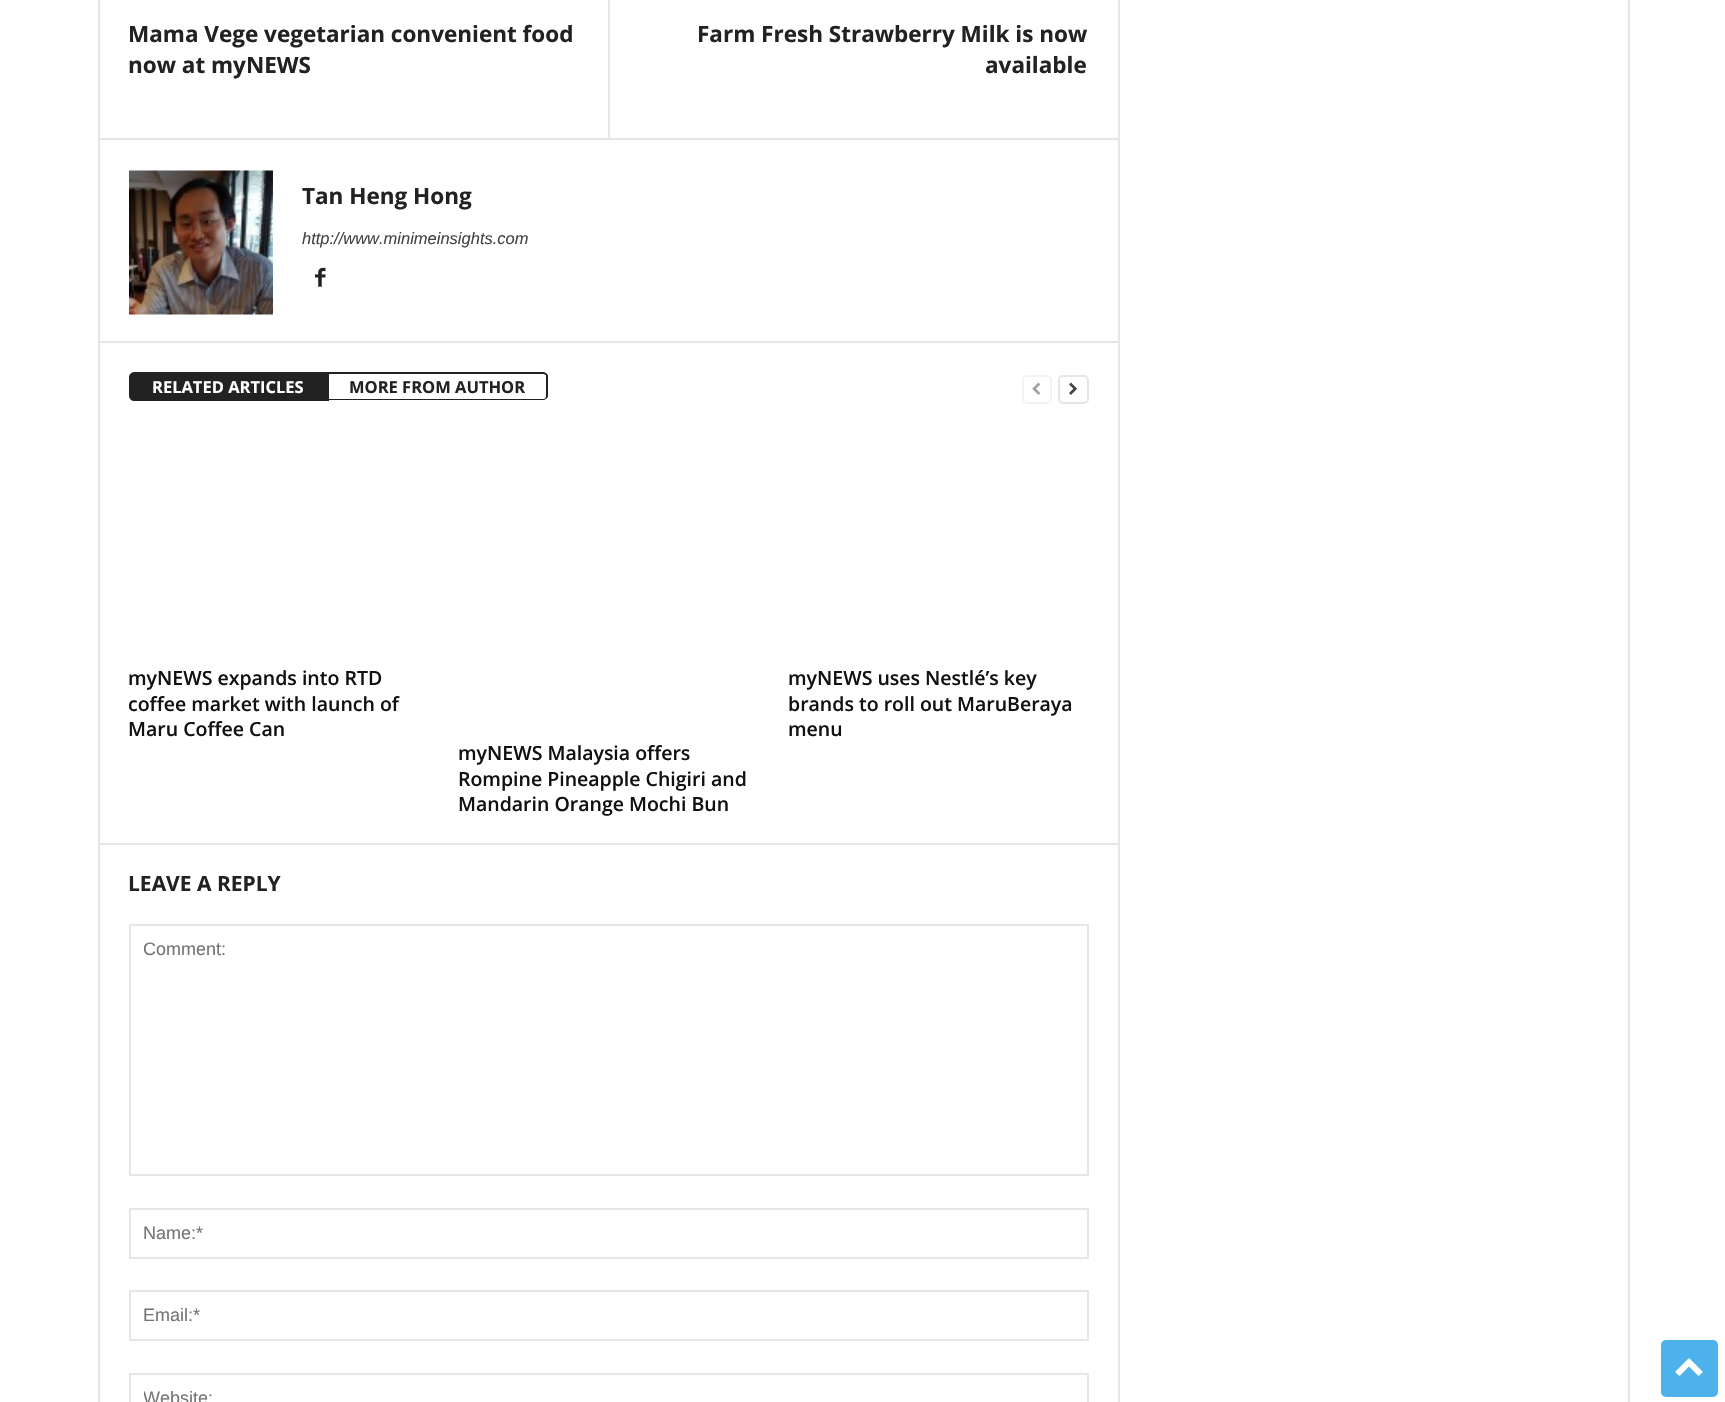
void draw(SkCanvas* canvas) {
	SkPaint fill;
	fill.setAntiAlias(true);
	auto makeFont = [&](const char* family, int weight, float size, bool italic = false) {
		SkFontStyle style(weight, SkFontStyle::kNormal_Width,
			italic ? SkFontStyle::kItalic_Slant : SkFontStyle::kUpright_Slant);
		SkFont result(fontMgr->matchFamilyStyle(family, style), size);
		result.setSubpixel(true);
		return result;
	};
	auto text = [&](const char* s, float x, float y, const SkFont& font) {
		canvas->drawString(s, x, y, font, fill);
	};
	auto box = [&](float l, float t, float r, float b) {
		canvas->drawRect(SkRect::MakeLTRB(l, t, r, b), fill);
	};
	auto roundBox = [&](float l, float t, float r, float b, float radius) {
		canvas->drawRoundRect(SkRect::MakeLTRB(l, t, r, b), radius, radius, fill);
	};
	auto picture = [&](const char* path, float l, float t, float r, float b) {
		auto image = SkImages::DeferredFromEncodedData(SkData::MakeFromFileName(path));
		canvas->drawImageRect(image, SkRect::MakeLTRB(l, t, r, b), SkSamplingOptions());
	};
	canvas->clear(0xFFFFFFFF);
	fill.setColor(0xFFE6E6E6);
	box(98, 0, 100, 1402);
	box(608, 0, 610, 138);
	box(99, 138, 1118, 140);
	picture("image0.png", 129, 170, 273, 315);
	picture("image1.png", 315, 267, 326, 287);
	box(99, 341, 1118, 343);
	fill.setColor(0xFF222222);
	canvas->drawPath(SkPathBuilder().moveTo(134, 373).lineTo(328, 373).lineTo(328, 400).lineTo(134, 400).cubicTo(132, 400, 130, 398, 130, 396).lineTo(130, 377).cubicTo(130, 375, 132, 373, 134, 373).close().detach(), fill);
	fill.setStyle(SkPaint::kStroke_Style);
	fill.setStrokeWidth(2);
	canvas->drawPath(SkPathBuilder().moveTo(134, 373).lineTo(328, 373).lineTo(328, 400).lineTo(134, 400).cubicTo(132, 400, 130, 398, 130, 396).lineTo(130, 377).cubicTo(130, 375, 132, 373, 134, 373).close().detach(), fill);
	fill.setStyle(SkPaint::kFill_Style);
	canvas->drawPath(SkPathBuilder(SkPathFillType::kEvenOdd).moveTo(328, 372).lineTo(543, 372).cubicTo(545, 372, 548, 374, 548, 376).lineTo(548, 396).cubicTo(548, 398, 545, 400, 543, 400).lineTo(328, 400).close().moveTo(328, 374).lineTo(543, 374).cubicTo(545, 374, 546, 375, 546, 376).lineTo(546, 396).cubicTo(546, 398, 545, 399, 543, 399).lineTo(328, 399).close().detach(), fill);
	fill.setStyle(SkPaint::kStroke_Style);
	fill.setColor(0xFFF3F3F3);
	canvas->drawRoundRect(SkRect::MakeLTRB(1023, 376, 1051, 403), 4, 4, fill);
	picture("image2.png", 1032, 382, 1040, 395);
	fill.setColor(0xFFE6E6E6);
	canvas->drawRoundRect(SkRect::MakeLTRB(1059, 376, 1088, 403), 4, 4, fill);
	picture("image3.png", 1069, 382, 1077, 395);
	fill.setStyle(SkPaint::kFill_Style);
	box(99, 843, 1118, 845);
	fill.setStyle(SkPaint::kStroke_Style);
	canvas->drawRect(SkRect::MakeLTRB(130, 925, 1088, 1175), fill);
	canvas->drawRect(SkRect::MakeLTRB(130, 1209, 1088, 1258), fill);
	canvas->drawRect(SkRect::MakeLTRB(130, 1291, 1088, 1340), fill);
	canvas->drawRect(SkRect::MakeLTRB(130, 1374, 1088, 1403), fill);
	fill.setStyle(SkPaint::kFill_Style);
	box(1118, 0, 1120, 1402);
	box(1628, 0, 1630, 1402);
	fill.setColor(0xFF4DB2EC);
	roundBox(1661, 1340, 1718, 1397, 5);
	picture("image4.png", 1675, 1358, 1703, 1376);
	auto font1 = makeFont("Open Sans", 700, 22.5f);
	fill.setColor(0xFF222222);
	text("Mama Vege vegetarian convenient food", 128, 42, font1);
	text("now at myNEWS", 128, 73, font1);
	text("Farm Fresh Strawberry Milk is now", 697, 42, font1);
	text("available", 985, 73, font1);
	text("Tan Heng Hong", 302, 204, font1);
	auto font2 = makeFont("Liberation Sans", 400, 16.5f, true);
	fill.setColor(0xFF444444);
	text("http://www.minimeinsights.com", 302, 244, font2);
	auto font3 = makeFont("Open Sans", 700, 16.5f);
	fill.setColor(0xFFFFFFFF);
	text("RELATED ARTICLES", 152, 393, font3);
	fill.setColor(0xFF222222);
	text("MORE FROM AUTHOR", 349, 393, font3);
	auto font4 = makeFont("Open Sans", 600, 19.5f);
	fill.setColor(0xFF111111);
	text("myNEWS expands into RTD", 128, 685, font4);
	text("coffee market with launch of", 128, 711, font4);
	text("Maru Coffee Can", 128, 736, font4);
	text("myNEWS uses Nestlé’s key", 788, 685, font4);
	text("brands to roll out MaruBeraya", 788, 711, font4);
	text("menu", 788, 736, font4);
	text("myNEWS Malaysia offers", 458, 760, font4);
	text("Rompine Pineapple Chigiri and", 458, 786, font4);
	text("Mandarin Orange Mochi Bun", 458, 811, font4);
	auto font5 = makeFont("Open Sans", 700, 21);
	fill.setColor(0xFF222222);
	text("LEAVE A REPLY", 128, 891, font5);
	auto font6 = makeFont("Liberation Sans", 400, 18);
	fill.setColor(0xFF757575);
	text("Comment:", 143, 955, font6);
	text("Name:*", 143, 1239, font6);
	text("Email:*", 143, 1321, font6);
	canvas->save();
	canvas->clipRect(SkRect::MakeLTRB(144, 1388, 1074, 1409));
	text("Website:", 143, 1404, font6);
	canvas->restore();
}
